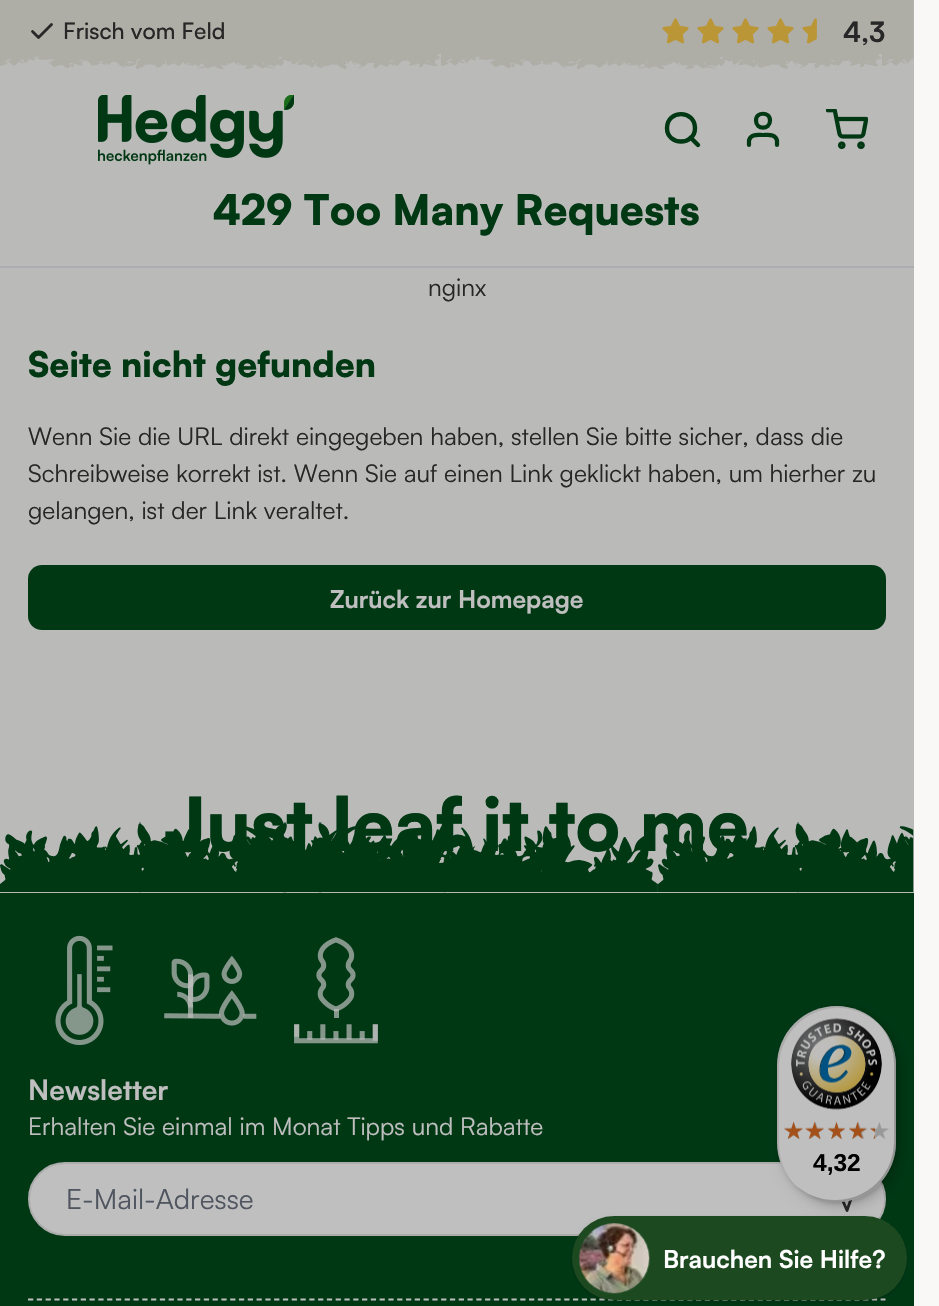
void draw(SkCanvas* canvas) {
	SkPaint fill;
	fill.setAntiAlias(true);
	auto makeFont = [&](const char* family, int weight, float size, bool italic = false) {
		SkFontStyle style(weight, SkFontStyle::kNormal_Width,
			italic ? SkFontStyle::kItalic_Slant : SkFontStyle::kUpright_Slant);
		SkFont result(fontMgr->matchFamilyStyle(family, style), size);
		result.setSubpixel(true);
		return result;
	};
	auto text = [&](const char* s, float x, float y, const SkFont& font) {
		canvas->drawString(s, x, y, font, fill);
	};
	auto box = [&](float l, float t, float r, float b) {
		canvas->drawRect(SkRect::MakeLTRB(l, t, r, b), fill);
	};
	auto roundBox = [&](float l, float t, float r, float b, float radius) {
		canvas->drawRoundRect(SkRect::MakeLTRB(l, t, r, b), radius, radius, fill);
	};
	auto picture = [&](const char* path, float l, float t, float r, float b) {
		auto image = SkImages::DeferredFromEncodedData(SkData::MakeFromFileName(path));
		canvas->drawImageRect(image, SkRect::MakeLTRB(l, t, r, b), SkSamplingOptions());
	};
	canvas->clear(0xFFF9F8F6);
	picture("image0.png", 98, 95, 294, 165);
	fill.setStyle(SkPaint::kStroke_Style);
	fill.setStrokeWidth(4.4f);
	fill.setStrokeCap(SkPaint::kRound_Cap);
	fill.setStrokeJoin(SkPaint::kRound_Join);
	fill.setColor(0xFF004A1A);
	canvas->drawPath(SkPathBuilder().moveTo(698, 145).lineTo(690.5f, 137.5f).moveTo(695, 128).cubicTo(695, 146, 667, 146, 667, 128).cubicTo(667, 109.5f, 695, 109.5f, 695, 128).close().detach(), fill);
	fill.setStrokeWidth(4.2f);
	canvas->drawPath(SkPathBuilder().moveTo(777, 145).lineTo(777, 140.5f).cubicTo(775.5f, 133.5f, 768, 135, 763, 135).cubicTo(758, 135, 750.5f, 133.5f, 749, 140.5f).lineTo(749, 145).moveTo(770, 120.5f).cubicTo(770, 130, 756, 130, 756, 120.5f).cubicTo(756, 111.5f, 770, 111.5f, 770, 120.5f).close().detach(), fill);
	picture("image1.png", 826, 109, 868, 150);
	picture("image2.png", 0, 0, 914, 69);
	fill.setStrokeWidth(2.8f);
	fill.setColor(0xFF333333);
	canvas->drawPath(SkPathBuilder().moveTo(51.5f, 24.5f).lineTo(38.5f, 37.5f).lineTo(32.5f, 31.5f).detach(), fill);
	picture("image3.png", 662, 18, 689, 44);
	picture("image3.png", 697, 18, 724, 44);
	picture("image3.png", 732, 18, 759, 44);
	picture("image3.png", 767, 18, 794, 44);
	picture("image4.png", 802, 18, 817, 44);
	fill.setStyle(SkPaint::kFill_Style);
	fill.setColor(0xFFE5E7EB);
	box(0, 266, 914, 268);
	fill.setColor(0xFF004A1A);
	roundBox(28, 565, 886, 630, 14);
	box(0, 893, 914, 1306);
	picture("image7.png", 55, 935, 113, 1045);
	picture("image8.png", 164, 955, 257, 1026);
	picture("image9.png", 294, 937, 378, 1044);
	fill.setColor(0xFFFFFFFF);
	canvas->drawRoundRect(SkRect::MakeLTRB(29, 1163, 885, 1235), 36, 36, fill);
	fill.setStyle(SkPaint::kStroke_Style);
	fill.setStrokeWidth(2);
	fill.setStrokeCap(SkPaint::kButt_Cap);
	fill.setStrokeJoin(SkPaint::kMiter_Join);
	fill.setColor(0xFFE6E6E6);
	canvas->drawRoundRect(SkRect::MakeLTRB(29, 1163, 885, 1235), 36, 36, fill);
	fill.setStrokeWidth(2.8f);
	fill.setStrokeCap(SkPaint::kRound_Cap);
	fill.setStrokeJoin(SkPaint::kRound_Join);
	fill.setColor(0xFF333333);
	canvas->drawPath(SkPathBuilder().moveTo(855, 1187).lineTo(842.5f, 1200).moveTo(855, 1187).lineTo(847, 1210.5f).lineTo(842.5f, 1200).moveTo(855, 1187).lineTo(832, 1195).lineTo(842.5f, 1200).detach(), fill);
	fill.setStrokeWidth(1.8f);
	fill.setStrokeCap(SkPaint::kButt_Cap);
	fill.setStrokeJoin(SkPaint::kMiter_Join);
	fill.setColor(0xFFFFFFFF);
	fill.setPathEffect(SkDashPathEffect::Make({{5.25f, 3.54f}}, 0));
	canvas->drawPath(SkPathBuilder().moveTo(28, 1299.5f).lineTo(885.5f, 1299.5f).detach(), fill);
	fill.setPathEffect(nullptr);
	fill.setStyle(SkPaint::kFill_Style);
	fill.setColor(0x26000000);
	fill.setMaskFilter(SkMaskFilter::MakeBlur(kNormal_SkBlurStyle, 7));
	canvas->drawRoundRect(SkRect::MakeLTRB(782, 1012, 901, 1208), 59.5f, 59.5f, fill);
	fill.setMaskFilter(nullptr);
	fill.setMaskFilter(SkMaskFilter::MakeBlur(kNormal_SkBlurStyle, 2));
	canvas->drawRoundRect(SkRect::MakeLTRB(779, 1008, 898, 1204), 59.5f, 59.5f, fill);
	fill.setMaskFilter(nullptr);
	fill.setColor(0xFFFFFFFF);
	roundBox(777, 1006, 896, 1202, 59.5f);
	fill.setColor(0x1A000000);
	canvas->drawPath(SkPathBuilder().moveTo(838, 1008).cubicTo(856, 1008, 872, 1016, 883, 1029).cubicTo(872, 1015, 856, 1006, 836, 1006).cubicTo(804, 1006, 777, 1033, 777, 1066).lineTo(777, 1142).cubicTo(777, 1159, 784, 1174, 795, 1185).cubicTo(785, 1174, 779, 1160, 779, 1144).lineTo(779, 1068).cubicTo(779, 1035, 805, 1008, 838, 1008).close().detach(), fill);
	fill.setColor(0x33000000);
	canvas->drawPath(SkPathBuilder().moveTo(794, 1184).cubicTo(805, 1195, 820, 1202, 836, 1202).cubicTo(869, 1202, 896, 1175, 896, 1142).lineTo(896, 1066).cubicTo(896, 1049, 889, 1034, 878, 1023).cubicTo(888, 1034, 894, 1048, 894, 1064).lineTo(894, 1141).cubicTo(894, 1174, 868, 1200, 835, 1200).cubicTo(819, 1200, 805, 1194, 794, 1184).close().detach(), fill);
	fill.setColor(0x33323232);
	canvas->drawPath(SkPathBuilder().moveTo(799, 1188).cubicTo(809, 1197, 822, 1202, 836, 1202).cubicTo(869, 1202, 896, 1175, 896, 1142).lineTo(896, 1066).cubicTo(896, 1045, 885, 1027, 869, 1016).cubicTo(885, 1027, 895, 1045, 895, 1065).lineTo(895, 1142).cubicTo(895, 1175, 868, 1201, 835, 1201).cubicTo(821, 1201, 809, 1196, 799, 1188).close().detach(), fill);
	fill.setColor(0x4DFFFFFF);
	canvas->drawPath(SkPathBuilder().moveTo(796, 1186).cubicTo(806, 1196, 821, 1202, 836, 1202).cubicTo(869, 1202, 896, 1175, 896, 1142).lineTo(896, 1066).cubicTo(896, 1046, 887, 1029, 873, 1019).cubicTo(886, 1030, 895, 1046, 895, 1065).lineTo(895, 1142).cubicTo(895, 1175, 868, 1201, 836, 1201).cubicTo(821, 1201, 806, 1195, 796, 1186).close().detach(), fill);
	picture("image10.png", 791, 1018, 882, 1110);
	picture("image11.png", 784, 1122, 803, 1139);
	picture("image12.png", 807, 1121, 824, 1139);
	picture("image13.png", 828, 1122, 845, 1139);
	picture("image14.png", 849, 1121, 868, 1139);
	picture("image15.png", 870, 1122, 889, 1139);
	picture("image16.png", 784, 1121, 803, 1140);
	picture("image17.png", 805, 1121, 824, 1140);
	picture("image18.png", 828, 1121, 845, 1140);
	picture("image19.png", 849, 1121, 866, 1140);
	picture("image20.png", 870, 1127, 875, 1140);
	auto font1 = makeFont("Satoshi", 500, 22.75f);
	fill.setColor(0xFF333333);
	text("Frisch vom Feld", 63, 39, font1);
	auto font2 = makeFont("Satoshi", 700, 28);
	text("4,3", 843, 42, font2);
	auto font3 = makeFont("Satoshi", 900, 42);
	fill.setColor(0xFF004A1A);
	text("429 Too Many Requests", 213, 225, font3);
	auto font4 = makeFont("Satoshi", 400, 24.5f);
	fill.setColor(0xFF333333);
	text("nginx", 428, 296, font4);
	auto font5 = makeFont("Satoshi", 900, 35);
	fill.setColor(0xFF004A1A);
	text("Seite nicht gefunden", 28, 377, font5);
	fill.setColor(0xFF333333);
	text("Wenn Sie die URL direkt eingegeben haben, stellen Sie bitte sicher, dass die", 28, 445, font4);
	text("Schreibweise korrekt ist. Wenn Sie auf einen Link geklickt haben, um hierher zu", 28, 482, font4);
	text("gelangen, ist der Link veraltet.", 28, 519, font4);
	auto font6 = makeFont("Satoshi", 700, 24.5f);
	fill.setColor(0xFFFFFFFF);
	text("Zurück zur Homepage", 330, 608, font6);
	auto font7 = makeFont("Satoshi", 900, 73.5f);
	fill.setColor(0xFF004A1A);
	text("Just leaf it to me", 164, 851, font7);
	picture("image6.png", 0, 822, 914, 893);
	fill.setColor(0xFFFFFFFF);
	text("Newsletter", 28, 1100, font2);
	text("Erhalten Sie einmal im Monat Tipps und Rabatte", 28, 1135, font4);
	auto font8 = makeFont("Satoshi", 400, 28);
	fill.setColor(0xFF6B7280);
	text("E-Mail-Adresse", 66, 1209, font8);
	auto font9 = makeFont("Liberation Sans", 700, 24.5f);
	fill.setColor(0xFF000000);
	text("4,32", 813, 1171, font9);
	fill.setColor(0x40000000);
	box(0, 0, 914, 1306);
	fill.setColor(0x1A000000);
	fill.setMaskFilter(SkMaskFilter::MakeBlur(kNormal_SkBlurStyle, 2.5f));
	canvas->drawRoundRect(SkRect::MakeLTRB(572, 1218, 907, 1302), 42, 42, fill);
	fill.setMaskFilter(nullptr);
	fill.setMaskFilter(SkMaskFilter::MakeBlur(kNormal_SkBlurStyle, 2));
	canvas->drawRoundRect(SkRect::MakeLTRB(574, 1220, 905, 1300), 40, 40, fill);
	fill.setMaskFilter(nullptr);
	fill.setColor(0xFF1D4920);
	roundBox(572, 1216, 907, 1300, 42);
	fill.setColor(0xFFFFFFFF);
	text("Brauchen Sie Hilfe?", 663, 1268, font6);
	picture("image5.png", 579, 1223, 650, 1294);
}
